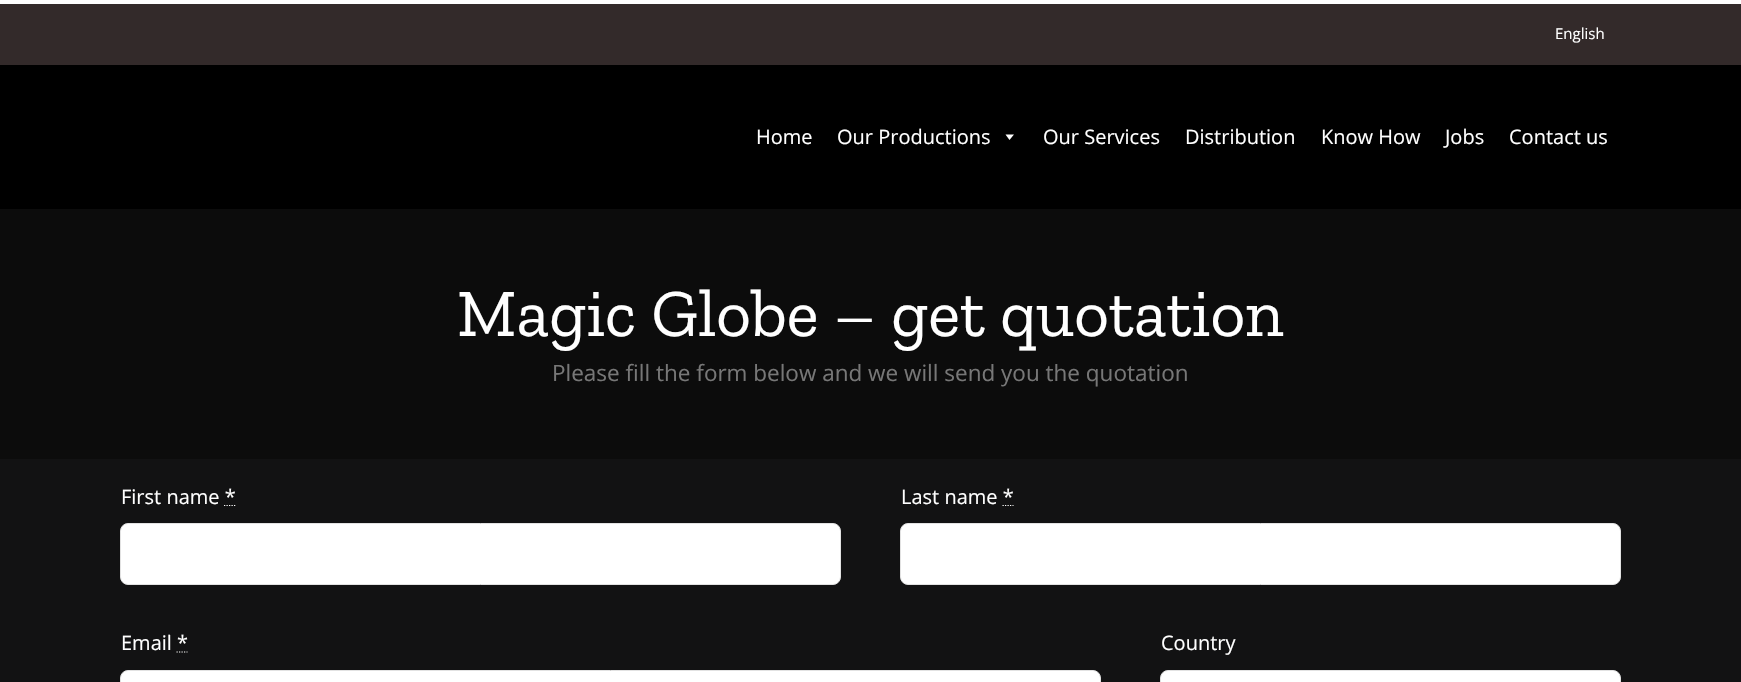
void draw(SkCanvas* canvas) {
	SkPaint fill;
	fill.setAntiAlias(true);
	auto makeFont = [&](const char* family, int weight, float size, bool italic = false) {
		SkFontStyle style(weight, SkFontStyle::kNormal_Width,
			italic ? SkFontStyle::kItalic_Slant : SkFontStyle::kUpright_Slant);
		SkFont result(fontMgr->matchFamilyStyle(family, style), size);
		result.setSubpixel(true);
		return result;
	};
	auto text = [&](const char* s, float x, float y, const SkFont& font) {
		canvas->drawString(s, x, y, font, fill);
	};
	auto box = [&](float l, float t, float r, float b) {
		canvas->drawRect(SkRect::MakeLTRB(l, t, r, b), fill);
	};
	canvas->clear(0xFF0C0C0C);
	fill.setColor(0xFF332A2A);
	box(0, 4, 1741, 65);
	fill.setColor(0xFFFFFFFF);
	box(0, 0, 1741, 4);
	fill.setColor(0xFF000000);
	box(0, 65, 1741, 209);
	fill.setColor(0xFFFFFFFF);
	canvas->drawPath(SkPathBuilder().moveTo(1014, 134.5f).lineTo(1009.5f, 140).lineTo(1005.5f, 134.5f).close().detach(), fill);
	fill.setColor(0xFF121213);
	box(0, 459, 1741, 682);
	fill.setStyle(SkPaint::kStroke_Style);
	fill.setStrokeWidth(1.2f);
	fill.setColor(0xFFFFFFFF);
	fill.setPathEffect(SkDashPathEffect::Make({{1.25f, 1.25f}}, 0));
	canvas->drawPath(SkPathBuilder().moveTo(224, 505.5f).lineTo(235.5f, 505.5f).detach(), fill);
	fill.setPathEffect(nullptr);
	fill.setStyle(SkPaint::kFill_Style);
	canvas->drawRoundRect(SkRect::MakeLTRB(120.5f, 523.5f, 840.5f, 584.5f), 7.5f, 7.5f, fill);
	fill.setStyle(SkPaint::kStroke_Style);
	fill.setStrokeWidth(1);
	fill.setColor(0xFFE2E2E2);
	canvas->drawRoundRect(SkRect::MakeLTRB(120.5f, 523.5f, 840.5f, 584.5f), 7.5f, 7.5f, fill);
	fill.setStrokeWidth(1.2f);
	fill.setColor(0xFFFFFFFF);
	fill.setPathEffect(SkDashPathEffect::Make({{1.25f, 1.25f}}, 0));
	canvas->drawPath(SkPathBuilder().moveTo(1002.5f, 505.5f).lineTo(1013.5f, 505.5f).detach(), fill);
	fill.setPathEffect(nullptr);
	fill.setStyle(SkPaint::kFill_Style);
	canvas->drawRoundRect(SkRect::MakeLTRB(900.5f, 523.5f, 1620.5f, 584.5f), 7.5f, 7.5f, fill);
	fill.setStyle(SkPaint::kStroke_Style);
	fill.setStrokeWidth(1);
	fill.setColor(0xFFE2E2E2);
	canvas->drawRoundRect(SkRect::MakeLTRB(900.5f, 523.5f, 1620.5f, 584.5f), 7.5f, 7.5f, fill);
	fill.setStrokeWidth(1.2f);
	fill.setColor(0xFFFFFFFF);
	fill.setPathEffect(SkDashPathEffect::Make({{1.25f, 1.25f}}, 0));
	canvas->drawPath(SkPathBuilder().moveTo(176.5f, 652).lineTo(187.5f, 652).detach(), fill);
	fill.setPathEffect(nullptr);
	fill.setStyle(SkPaint::kFill_Style);
	canvas->drawRoundRect(SkRect::MakeLTRB(120.5f, 670.5f, 1100.5f, 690.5f), 7.5f, 7.5f, fill);
	fill.setStyle(SkPaint::kStroke_Style);
	fill.setStrokeWidth(1);
	fill.setColor(0xFFE2E2E2);
	canvas->drawRoundRect(SkRect::MakeLTRB(120.5f, 670.5f, 1100.5f, 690.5f), 7.5f, 7.5f, fill);
	fill.setStyle(SkPaint::kFill_Style);
	fill.setColor(0xFFFFFFFF);
	canvas->drawRoundRect(SkRect::MakeLTRB(1160.5f, 670.5f, 1620.5f, 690.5f), 7.5f, 7.5f, fill);
	fill.setStyle(SkPaint::kStroke_Style);
	fill.setColor(0xFFE2E2E2);
	canvas->drawRoundRect(SkRect::MakeLTRB(1160.5f, 670.5f, 1620.5f, 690.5f), 7.5f, 7.5f, fill);
	auto font1 = makeFont("Open Sans", 400, 15);
	fill.setStyle(SkPaint::kFill_Style);
	fill.setColor(0xFFFFFFFF);
	text("English", 1555, 39, font1);
	auto font2 = makeFont("Open Sans", 400, 20);
	text("Home", 756, 144, font2);
	text("Our Productions", 837, 144, font2);
	text("Our Services", 1043, 144, font2);
	text("Distribution", 1185, 144, font2);
	text("Know How", 1321, 144, font2);
	text("Jobs", 1445, 144, font2);
	text("Contact us", 1509, 144, font2);
	auto font3 = makeFont("Zilla Slab", 400, 67.5f);
	text("Magic Globe – get quotation", 457, 336, font3);
	auto font4 = makeFont("Open Sans", 400, 22.5f);
	fill.setColor(0xFF777777);
	text("Please fill the form below and we will send you the quotation", 552, 381, font4);
	fill.setColor(0xFFFFFFFF);
	text("First name *", 121, 504, font2);
	text("Last name *", 901, 504, font2);
	text("Email *", 121, 650, font2);
	text("Country", 1161, 650, font2);
}
